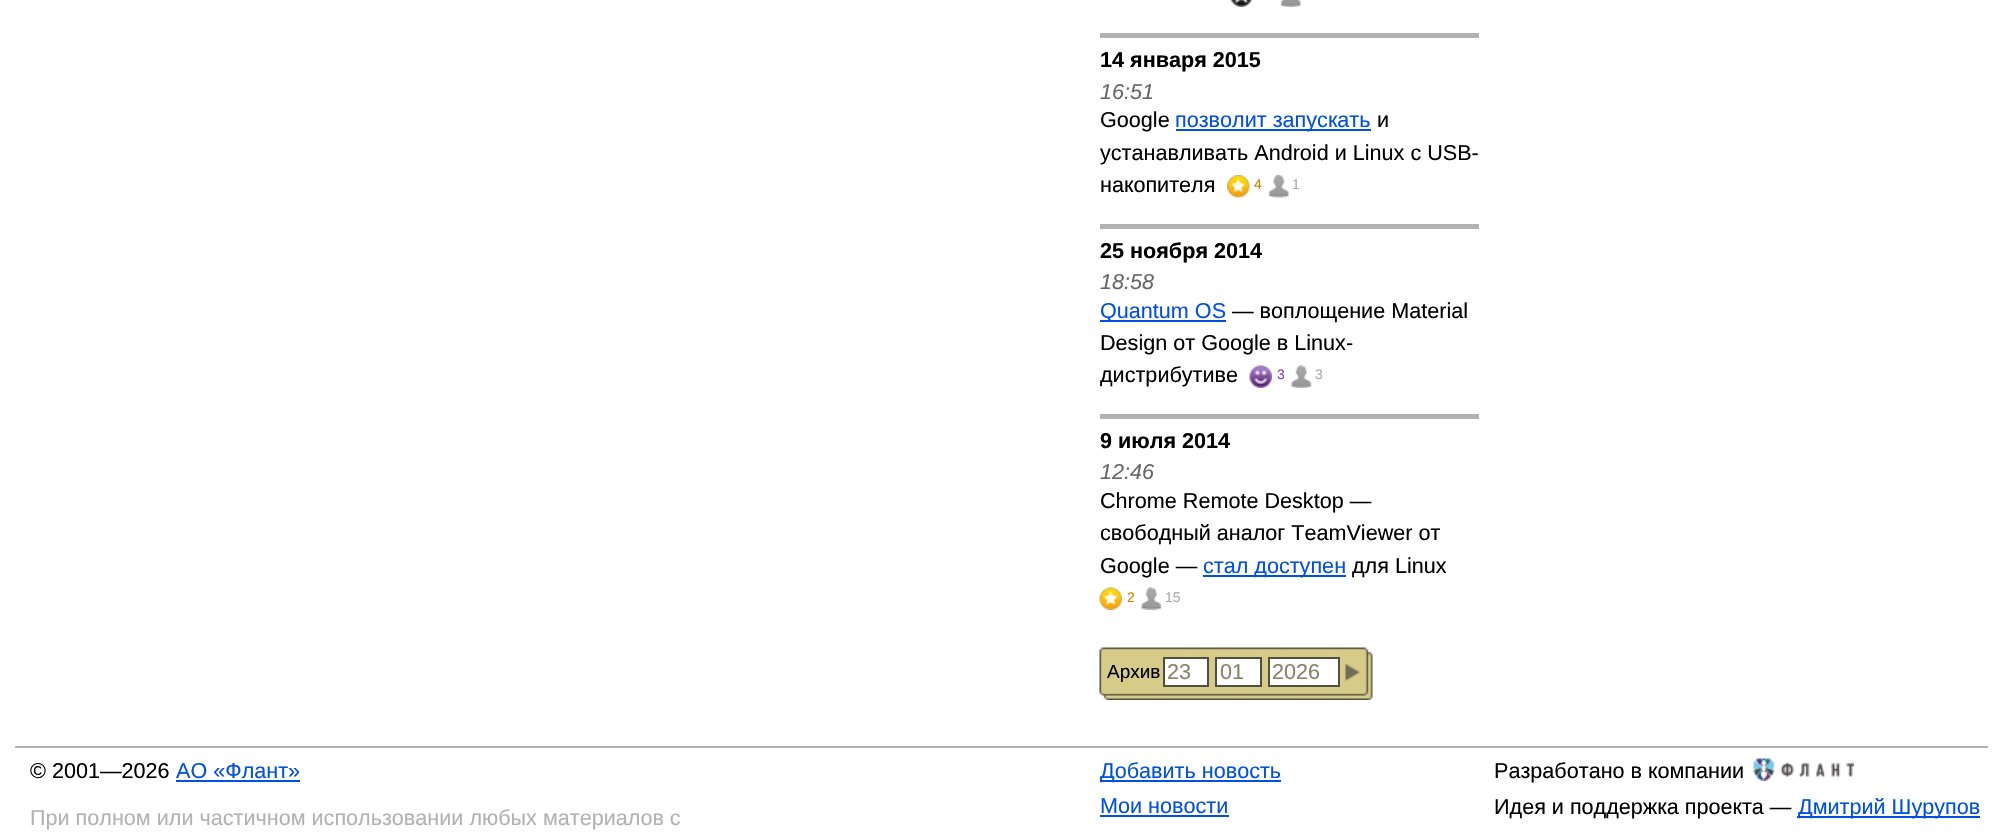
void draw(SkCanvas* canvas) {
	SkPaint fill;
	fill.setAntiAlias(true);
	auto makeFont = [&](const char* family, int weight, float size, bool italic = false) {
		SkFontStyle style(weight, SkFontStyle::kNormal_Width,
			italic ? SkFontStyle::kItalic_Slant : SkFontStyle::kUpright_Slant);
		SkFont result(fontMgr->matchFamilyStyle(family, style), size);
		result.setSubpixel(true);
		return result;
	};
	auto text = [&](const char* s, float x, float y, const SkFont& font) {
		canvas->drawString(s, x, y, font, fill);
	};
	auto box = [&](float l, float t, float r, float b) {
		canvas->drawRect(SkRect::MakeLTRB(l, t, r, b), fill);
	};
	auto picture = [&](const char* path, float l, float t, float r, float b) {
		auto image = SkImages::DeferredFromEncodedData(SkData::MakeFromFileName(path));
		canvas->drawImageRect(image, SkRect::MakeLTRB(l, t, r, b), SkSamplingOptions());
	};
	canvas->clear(0xFFFFFFFF);
	picture("image0.png", 1230, 0, 1253, 7);
	picture("image1.png", 1280, 0, 1301, 7);
	fill.setColor(0xFFB2B2B2);
	box(1100, 33, 1479, 38);
	fill.setColor(0xFF0050E3);
	box(1176, 129, 1371, 131);
	picture("image2.png", 1227, 175, 1250, 198);
	picture("image3.png", 1268, 175, 1289, 198);
	fill.setColor(0xFFB2B2B2);
	box(1100, 224, 1479, 229);
	fill.setColor(0xFF0050E3);
	box(1100, 320, 1226, 322);
	picture("image4.png", 1249, 365, 1272, 388);
	picture("image5.png", 1291, 365, 1312, 388);
	fill.setColor(0xFFB2B2B2);
	box(1100, 414, 1479, 419);
	fill.setColor(0xFF0050E3);
	box(1203, 575, 1346, 577);
	picture("image6.png", 1099, 587, 1122, 610);
	picture("image7.png", 1141, 587, 1162, 610);
	picture("image8.png", 1099, 647, 1373, 700);
	fill.setColor(0xFFFFFFFF);
	canvas->drawRect(SkRect::MakeLTRB(1164, 658, 1208, 686), fill);
	fill.setStyle(SkPaint::kStroke_Style);
	fill.setStrokeWidth(2);
	fill.setColor(0xFF524F3E);
	canvas->drawRect(SkRect::MakeLTRB(1164, 658, 1208, 686), fill);
	fill.setStyle(SkPaint::kFill_Style);
	fill.setColor(0xFFFFFFFF);
	canvas->drawRect(SkRect::MakeLTRB(1216, 658, 1261, 686), fill);
	fill.setStyle(SkPaint::kStroke_Style);
	fill.setColor(0xFF524F3E);
	canvas->drawRect(SkRect::MakeLTRB(1216, 658, 1261, 686), fill);
	fill.setStyle(SkPaint::kFill_Style);
	fill.setColor(0xFFFFFFFF);
	canvas->drawRect(SkRect::MakeLTRB(1269, 658, 1339, 686), fill);
	fill.setStyle(SkPaint::kStroke_Style);
	fill.setColor(0xFF524F3E);
	canvas->drawRect(SkRect::MakeLTRB(1269, 658, 1339, 686), fill);
	picture("image9.png", 1345, 664, 1361, 681);
	fill.setStyle(SkPaint::kFill_Style);
	fill.setColor(0xFFB2B2B2);
	box(15, 746, 1988, 748);
	fill.setColor(0xFF0050E3);
	box(176, 780, 300, 782);
	box(1100, 780, 1281, 782);
	box(1100, 815, 1229, 817);
	picture("image10.png", 1753, 758, 1854, 781);
	box(1797, 816, 1980, 818);
	auto font1 = makeFont("Liberation Sans", 700, 21.6f);
	fill.setColor(0xFF000000);
	text("14 января 2015", 1100, 67, font1);
	auto font2 = makeFont("Liberation Sans", 400, 21.6f, true);
	fill.setColor(0xFF666666);
	text("16:51", 1100, 99, font2);
	auto font3 = makeFont("Liberation Sans", 400, 21.6f);
	fill.setColor(0xFF000000);
	text("Google", 1100, 127, font3);
	fill.setColor(0xFF0050E3);
	text("позволит запускать", 1175, 127, font3);
	fill.setColor(0xFF000000);
	text("и", 1377, 127, font3);
	text("устанавливать Android и Linux c USB-", 1100, 160, font3);
	text("накопителя", 1100, 192, font3);
	auto font4 = makeFont("Liberation Sans", 400, 14);
	fill.setColor(0xFFD28300);
	text("4", 1254, 189, font4);
	fill.setColor(0xFFAAAAAA);
	text("1", 1292, 189, font4);
	fill.setColor(0xFF000000);
	text("25 ноября 2014", 1100, 258, font1);
	fill.setColor(0xFF666666);
	text("18:58", 1100, 289, font2);
	fill.setColor(0xFF0050E3);
	text("Quantum OS", 1100, 318, font3);
	fill.setColor(0xFF000000);
	text("— воплощение Material", 1232, 318, font3);
	text("Design от Google в Linux-", 1100, 350, font3);
	text("дистрибутиве", 1100, 382, font3);
	fill.setColor(0xFF903FC2);
	text("3", 1277, 379, font4);
	fill.setColor(0xFFAAAAAA);
	text("3", 1315, 379, font4);
	fill.setColor(0xFF000000);
	text("9 июля 2014", 1100, 448, font1);
	fill.setColor(0xFF666666);
	text("12:46", 1100, 479, font2);
	fill.setColor(0xFF000000);
	text("Chrome Remote Desktop —", 1100, 508, font3);
	text("свободный аналог TeamViewer от", 1100, 540, font3);
	text("Google —", 1100, 573, font3);
	fill.setColor(0xFF0050E3);
	text("стал доступен", 1203, 573, font3);
	fill.setColor(0xFF000000);
	text("для Linux", 1352, 573, font3);
	fill.setColor(0xFFD28300);
	text("2", 1127, 602, font4);
	fill.setColor(0xFFAAAAAA);
	text("15", 1165, 602, font4);
	auto font5 = makeFont("Liberation Sans", 400, 19);
	fill.setColor(0xFF000000);
	text("Архив", 1107, 678, font5);
	fill.setColor(0xFF85816A);
	text("23", 1167, 679, font3);
	text("01", 1220, 679, font3);
	text("2026", 1272, 679, font3);
	fill.setColor(0xFF000000);
	text("© 2001—2026", 30, 778, font3);
	fill.setColor(0xFF0050E3);
	text("АО «Флант»", 176, 778, font3);
	fill.setColor(0xFFB2B2B2);
	text("При полном или частичном использовании любых материалов с", 30, 825, font3);
	fill.setColor(0xFF0050E3);
	text("Добавить новость", 1100, 778, font3);
	text("Мои новости", 1100, 813, font3);
	fill.setColor(0xFF000000);
	text("Разработано в компании", 1494, 778, font3);
	text("Идея и поддержка проекта —", 1494, 814, font3);
	fill.setColor(0xFF0050E3);
	text("Дмитрий Шурупов", 1798, 814, font3);
}
